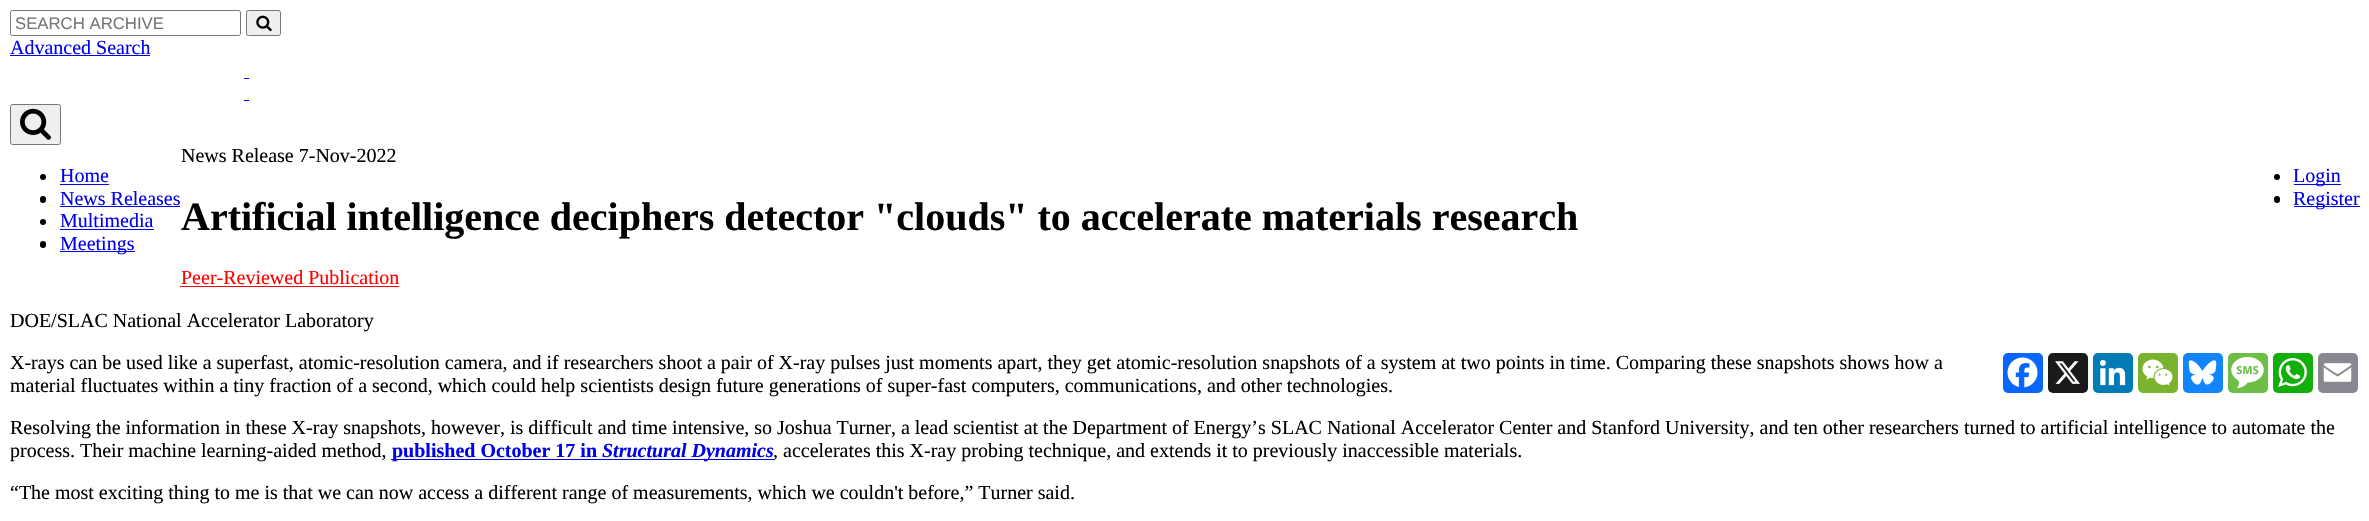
void draw(SkCanvas* canvas) {
	SkPaint fill;
	fill.setAntiAlias(true);
	auto makeFont = [&](const char* family, int weight, float size, bool italic = false) {
		SkFontStyle style(weight, SkFontStyle::kNormal_Width,
			italic ? SkFontStyle::kItalic_Slant : SkFontStyle::kUpright_Slant);
		SkFont result(fontMgr->matchFamilyStyle(family, style), size);
		result.setSubpixel(true);
		return result;
	};
	auto text = [&](const char* s, float x, float y, const SkFont& font) {
		canvas->drawString(s, x, y, font, fill);
	};
	auto box = [&](float l, float t, float r, float b) {
		canvas->drawRect(SkRect::MakeLTRB(l, t, r, b), fill);
	};
	auto roundBox = [&](float l, float t, float r, float b, float radius) {
		canvas->drawRoundRect(SkRect::MakeLTRB(l, t, r, b), radius, radius, fill);
	};
	auto picture = [&](const char* path, float l, float t, float r, float b) {
		auto image = SkImages::DeferredFromEncodedData(SkData::MakeFromFileName(path));
		canvas->drawImageRect(image, SkRect::MakeLTRB(l, t, r, b), SkSamplingOptions());
	};
	canvas->clear(0xFFFFFFFF);
	fill.setStyle(SkPaint::kStroke_Style);
	fill.setStrokeWidth(1);
	fill.setColor(0xFF767676);
	canvas->drawRoundRect(SkRect::MakeLTRB(10.5f, 10.5f, 240.5f, 35.5f), 2, 2, fill);
	fill.setStyle(SkPaint::kFill_Style);
	fill.setColor(0xFFEFEFEF);
	canvas->drawRoundRect(SkRect::MakeLTRB(246.5f, 10.5f, 280.5f, 35.5f), 2, 2, fill);
	fill.setStyle(SkPaint::kStroke_Style);
	fill.setColor(0xFF767676);
	canvas->drawRoundRect(SkRect::MakeLTRB(246.5f, 10.5f, 280.5f, 35.5f), 2, 2, fill);
	picture("image0.png", 256, 15, 272, 32);
	fill.setStyle(SkPaint::kFill_Style);
	fill.setColor(0xFF0000EE);
	box(10, 55, 150, 56);
	box(244, 78, 249, 79);
	box(244, 100, 249, 101);
	fill.setColor(0xFFEFEFEF);
	canvas->drawRoundRect(SkRect::MakeLTRB(10.5f, 104.5f, 60.5f, 144.5f), 2, 2, fill);
	fill.setStyle(SkPaint::kStroke_Style);
	fill.setColor(0xFF767676);
	canvas->drawRoundRect(SkRect::MakeLTRB(10.5f, 104.5f, 60.5f, 144.5f), 2, 2, fill);
	picture("image1.png", 20, 108, 51, 140);
	fill.setStyle(SkPaint::kFill_Style);
	fill.setColor(0xFF000000);
	canvas->drawCircle(43, 177, 3, fill);
	fill.setColor(0xFF0000EE);
	box(60, 184, 109, 185);
	fill.setColor(0xFF000000);
	roundBox(40, 196, 46, 203, 3);
	fill.setColor(0xFF0000EE);
	box(60, 206, 180, 207);
	fill.setColor(0xFF000000);
	canvas->drawCircle(43, 222, 3, fill);
	fill.setColor(0xFF0000EE);
	box(60, 229, 154, 230);
	fill.setColor(0xFF000000);
	roundBox(40, 241, 46, 248, 3);
	fill.setColor(0xFF0000EE);
	box(60, 251, 135, 252);
	fill.setColor(0xFF000000);
	canvas->drawCircle(2277, 177, 3, fill);
	fill.setColor(0xFF0000EE);
	box(2294, 184, 2341, 185);
	fill.setColor(0xFF000000);
	roundBox(2274, 196, 2280, 203, 3);
	fill.setColor(0xFF0000EE);
	box(2294, 206, 2360, 207);
	fill.setColor(0xFFFF0000);
	box(180, 286, 399, 287);
	fill.setColor(0xFF0866FF);
	roundBox(2003, 353, 2043, 393, 5);
	picture("image2.png", 2007, 357, 2038, 388);
	fill.setColor(0xFF1A1A1A);
	roundBox(2048, 353, 2088, 393, 5);
	picture("image3.png", 2055, 361, 2080, 384);
	fill.setColor(0xFF007BB5);
	roundBox(2093, 353, 2133, 393, 5);
	picture("image4.png", 2099, 359, 2126, 386);
	fill.setColor(0xFF7BB32E);
	roundBox(2138, 353, 2178, 393, 5);
	picture("image5.png", 2142, 359, 2173, 386);
	fill.setColor(0xFF1285FE);
	roundBox(2183, 353, 2223, 393, 5);
	picture("image6.png", 2188, 360, 2217, 385);
	fill.setColor(0xFF6CBE45);
	roundBox(2228, 353, 2268, 393, 5);
	picture("image7.png", 2231, 356, 2264, 388);
	fill.setColor(0xFF12AF0A);
	roundBox(2273, 353, 2313, 393, 5);
	picture("image8.png", 2278, 358, 2307, 387);
	fill.setColor(0xFF888990);
	roundBox(2318, 353, 2358, 393, 5);
	picture("image9.png", 2323, 363, 2352, 382);
	fill.setColor(0xFF0000EE);
	box(391, 459, 774, 460);
	auto font1 = makeFont("Liberation Sans", 400, 16.75f);
	fill.setColor(0xFF757575);
	text("SEARCH ARCHIVE", 15, 29, font1);
	auto font2 = makeFont("Liberation Serif", 400, 20);
	fill.setColor(0xFF0000EE);
	text("Advanced Search", 10, 54, font2);
	text("Home", 60, 182, font2);
	text("News Releases", 60, 205, font2);
	text("Multimedia", 60, 227, font2);
	text("Meetings", 60, 250, font2);
	text("Login", 2293, 182, font2);
	text("Register", 2293, 205, font2);
	fill.setColor(0xFF000000);
	text("News Release 7-Nov-2022", 181, 162, font2);
	auto font3 = makeFont("Liberation Serif", 700, 40);
	text("Artificial intelligence deciphers detector \"clouds\" to accelerate materials research", 181, 230, font3);
	fill.setColor(0xFFFF0000);
	text("Peer-Reviewed Publication", 181, 284, font2);
	fill.setColor(0xFF000000);
	text("DOE/SLAC National Accelerator Laboratory", 10, 327, font2);
	text("X-rays can be used like a superfast, atomic-resolution camera, and if researchers shoot a pair of X-ray pulses just moments apart, they get atomic-resolution snapshots of a system at two points in time. Comparing these snapshots shows how a", 10, 369, font2);
	text("material fluctuates within a tiny fraction of a second, which could help scientists design future generations of super-fast computers, communications, and other technologies.", 10, 392, font2);
	text("Resolving the information in these X-ray snapshots, however, is difficult and time intensive, so Joshua Turner, a lead scientist at the Department of Energy’s SLAC National Accelerator Center and Stanford University, and ten other researchers turned to artificial intelligence to automate the", 10, 434, font2);
	text("process. Their machine learning-aided method,", 10, 457, font2);
	auto font4 = makeFont("Liberation Serif", 700, 20);
	fill.setColor(0xFF0000EE);
	text("published October 17 in", 392, 457, font4);
	auto font5 = makeFont("Liberation Serif", 700, 20, true);
	text("Structural Dynamics", 602, 457, font5);
	fill.setColor(0xFF000000);
	text(", accelerates this X-ray probing technique, and extends it to previously inaccessible materials.", 773, 457, font2);
	text("“The most exciting thing to me is that we can now access a different range of measurements, which we couldn't before,” Turner said.", 10, 499, font2);
}
